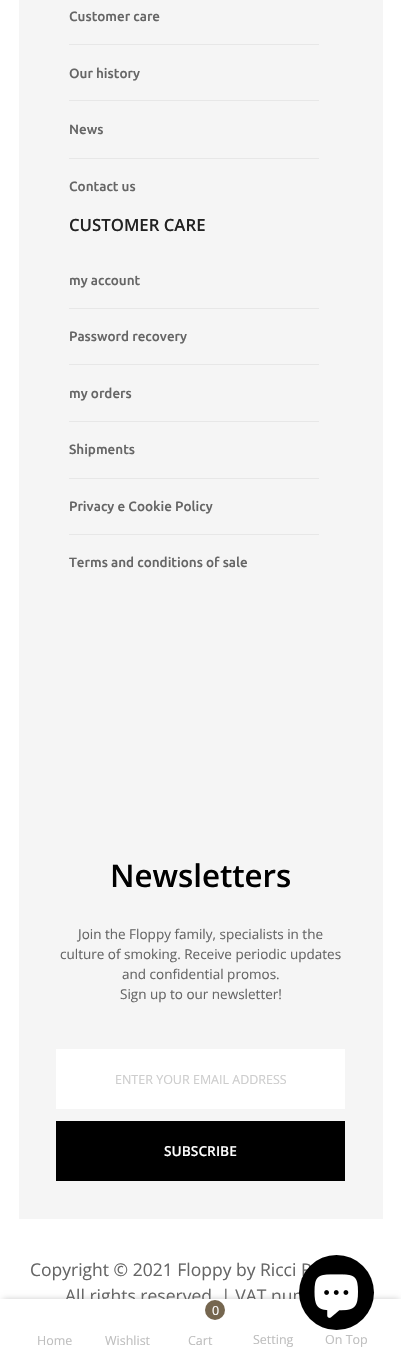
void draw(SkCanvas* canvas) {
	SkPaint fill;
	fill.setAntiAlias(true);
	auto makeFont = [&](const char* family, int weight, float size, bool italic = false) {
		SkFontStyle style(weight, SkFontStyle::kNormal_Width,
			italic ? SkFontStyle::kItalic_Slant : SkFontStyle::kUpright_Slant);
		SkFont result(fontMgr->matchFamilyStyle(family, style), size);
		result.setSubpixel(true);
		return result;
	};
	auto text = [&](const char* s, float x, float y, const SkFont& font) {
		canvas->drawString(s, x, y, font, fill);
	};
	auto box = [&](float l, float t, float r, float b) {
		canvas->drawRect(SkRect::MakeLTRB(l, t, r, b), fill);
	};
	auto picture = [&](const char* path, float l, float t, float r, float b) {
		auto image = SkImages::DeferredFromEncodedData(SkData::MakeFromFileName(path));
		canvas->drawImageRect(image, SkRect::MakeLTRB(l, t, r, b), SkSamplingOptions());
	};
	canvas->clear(0xFFFFFFFF);
	fill.setColor(0xFFF5F5F5);
	box(19, 0, 383, 1219);
	fill.setColor(0xFFE7E7E7);
	box(69, 44, 319, 45);
	box(69, 100, 319, 101);
	box(69, 158, 319, 159);
	box(69, 308, 319, 309);
	box(69, 364, 319, 365);
	box(69, 421, 319, 422);
	box(69, 478, 319, 479);
	box(69, 534, 319, 535);
	fill.setColor(0xFFFFFFFF);
	box(56, 1049, 345, 1109);
	fill.setColor(0xFF000000);
	box(56, 1121, 345, 1181);
	fill.setColor(0x33000000);
	fill.setMaskFilter(SkMaskFilter::MakeBlur(kNormal_SkBlurStyle, 3));
	canvas->drawRect(SkRect::MakeLTRB(3, 1299, 399, 1351), fill);
	fill.setMaskFilter(nullptr);
	auto font1 = makeFont("Ubuntu", 500, 13.5f);
	fill.setColor(0xFF666666);
	text("Customer care", 69, 21, font1);
	text("Our history", 69, 78, font1);
	text("News", 69, 134, font1);
	text("Contact us", 69, 191, font1);
	auto font2 = makeFont("Open Sans", 600, 16.75f);
	fill.setColor(0xFF222222);
	text("CUSTOMER CARE", 69, 231, font2);
	fill.setColor(0xFF666666);
	text("my account", 69, 285, font1);
	text("Password recovery", 69, 341, font1);
	text("my orders", 69, 398, font1);
	text("Shipments", 69, 454, font1);
	text("Privacy e Cookie Policy", 69, 511, font1);
	text("Terms and conditions of sale", 69, 567, font1);
	auto font3 = makeFont("Open Sans", 600, 31.25f);
	fill.setColor(0xFF000000);
	text("Newsletters", 110, 887, font3);
	auto font4 = makeFont("Open Sans", 400, 13.5f);
	fill.setColor(0xFF666666);
	text("Join the Floppy family, specialists in the", 78, 939, font4);
	text("culture of smoking. Receive periodic updates", 60, 959, font4);
	text("and confidential promos.", 122, 979, font4);
	text("Sign up to our newsletter!", 120, 999, font4);
	auto font5 = makeFont("Open Sans", 400, 12.5f);
	fill.setColor(0xFFCDCDCD);
	text("ENTER YOUR EMAIL ADDRESS", 115, 1084, font5);
	auto font6 = makeFont("Open Sans", 600, 13.75f);
	fill.setColor(0xFFFFFFFF);
	text("SUBSCRIBE", 164, 1156, font6);
	auto font7 = makeFont("Open Sans", 400, 17.5f);
	fill.setColor(0xFF666666);
	text("Copyright © 2021 Floppy by Ricci R", 30, 1276, font7);
	text("All rights reserved. | VAT num", 65, 1302, font7);
	fill.setColor(0xFFFFFFFF);
	box(0, 1299, 401, 1356);
	fill.setColor(0xFF000000);
	canvas->drawCircle(336.5f, 1292.5f, 37.5f, fill);
	picture("image0.png", 314, 1274, 358, 1318);
	fill.setColor(0xFFBEBEBE);
	text("Home", 37, 1345, font5);
	text("Wishlist", 105, 1345, font5);
	fill.setColor(0xFF75664F);
	canvas->drawCircle(215, 1310, 10, fill);
	fill.setColor(0xFFFFFFFF);
	text("0", 212, 1315, font5);
	fill.setColor(0xFFBEBEBE);
	text("Cart", 188, 1345, font5);
	text("Setting", 253, 1344, font5);
	text("On Top", 325, 1344, font5);
}
